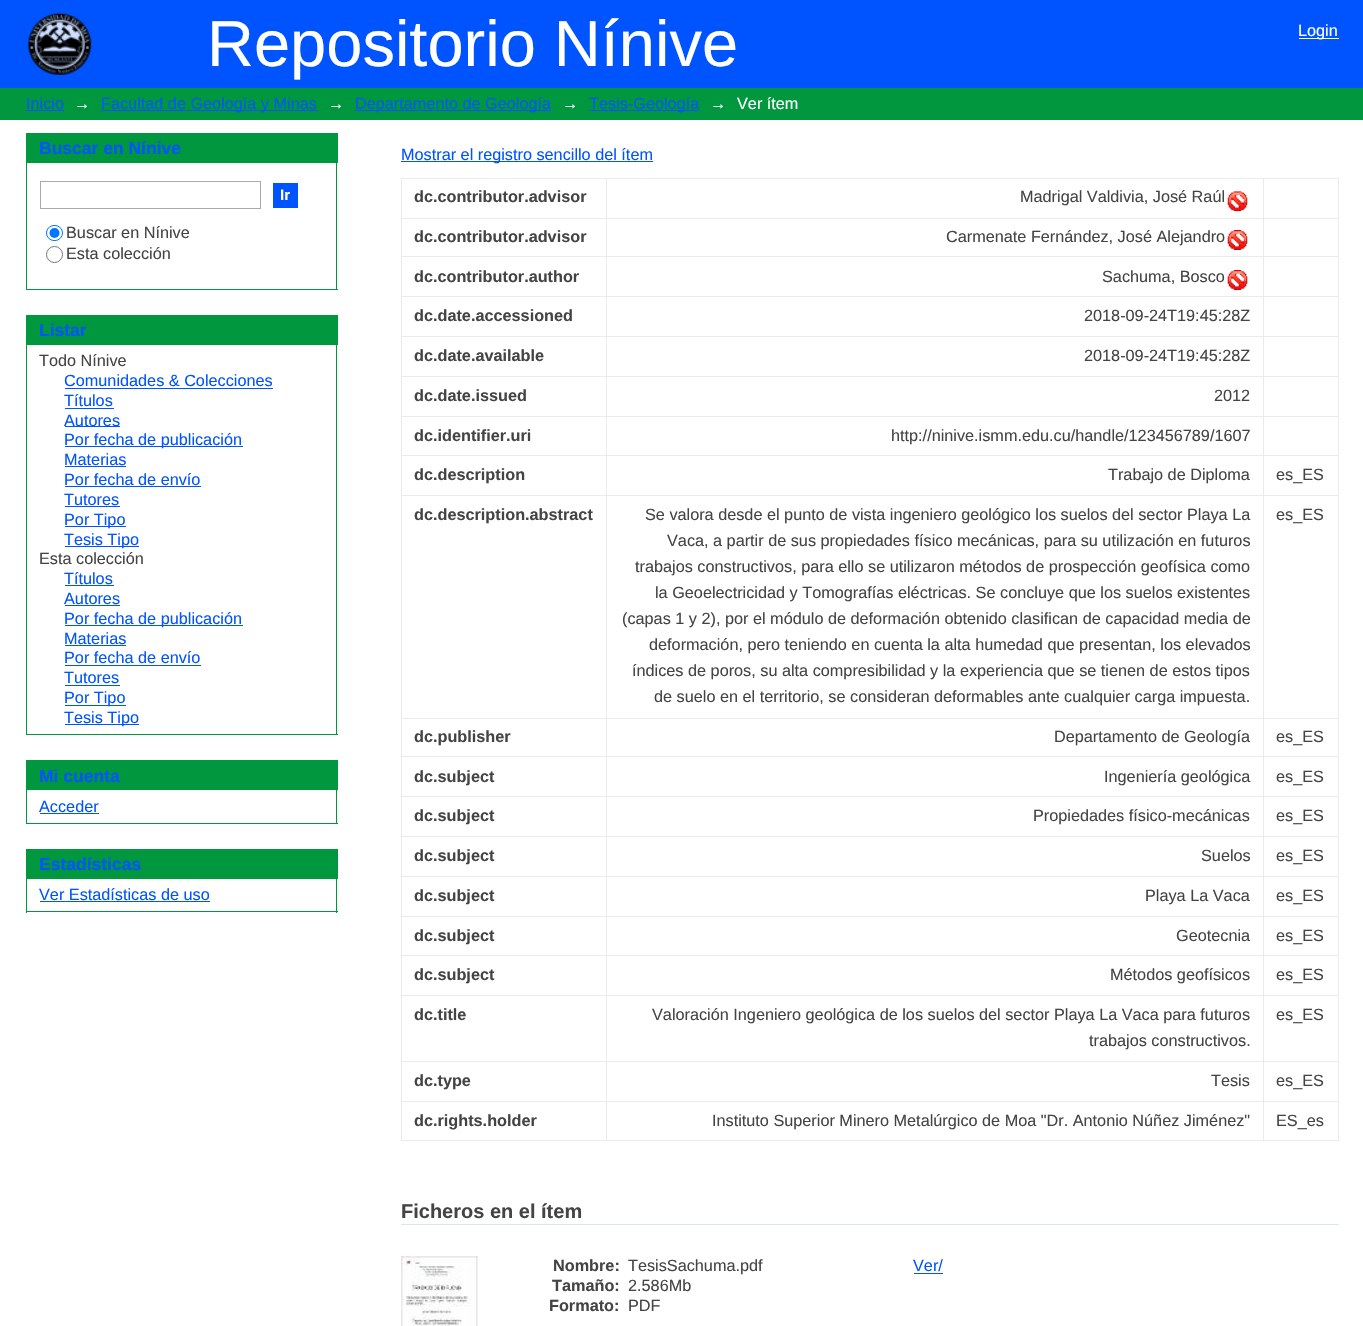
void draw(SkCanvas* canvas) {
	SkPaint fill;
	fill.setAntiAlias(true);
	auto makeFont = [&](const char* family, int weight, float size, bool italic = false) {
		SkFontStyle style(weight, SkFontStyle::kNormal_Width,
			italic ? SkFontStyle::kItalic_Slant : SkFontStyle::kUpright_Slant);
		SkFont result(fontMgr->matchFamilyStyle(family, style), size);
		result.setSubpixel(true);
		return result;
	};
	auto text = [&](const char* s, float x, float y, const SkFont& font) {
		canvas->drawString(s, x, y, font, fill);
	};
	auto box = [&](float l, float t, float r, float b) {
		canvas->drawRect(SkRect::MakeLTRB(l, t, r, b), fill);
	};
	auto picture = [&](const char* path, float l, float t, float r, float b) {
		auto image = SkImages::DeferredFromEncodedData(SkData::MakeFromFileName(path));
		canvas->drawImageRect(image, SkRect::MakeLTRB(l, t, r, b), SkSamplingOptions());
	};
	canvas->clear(0xFFFFFFFF);
	fill.setColor(0xFF0054FF);
	box(0, 0, 1363, 88);
	picture("image0.png", 27, 12, 93, 75);
	fill.setColor(0xFFFFFFFF);
	box(1299, 38, 1339, 39);
	fill.setColor(0xFF00973E);
	box(0, 88, 1363, 120);
	fill.setColor(0xFF0054FF);
	box(26, 110, 64, 111);
	box(101, 110, 318, 111);
	box(355, 110, 551, 111);
	box(589, 110, 699, 111);
	fill.setColor(0xFF00973E);
	box(26, 133, 338, 163);
	box(336, 163, 337, 290);
	box(26, 289, 338, 290);
	box(26, 163, 27, 290);
	fill.setStyle(SkPaint::kStroke_Style);
	fill.setStrokeWidth(1);
	fill.setColor(0xFFAAAAAA);
	canvas->drawRect(SkRect::MakeLTRB(40.5f, 181.5f, 260.5f, 208.5f), fill);
	fill.setStyle(SkPaint::kFill_Style);
	fill.setColor(0xFF0054FF);
	box(273, 183, 298, 208);
	fill.setStyle(SkPaint::kStroke_Style);
	fill.setColor(0xFF0075FF);
	canvas->drawRoundRect(SkRect::MakeLTRB(46.5f, 225.5f, 62.5f, 240.5f), 7.5f, 7.5f, fill);
	fill.setStyle(SkPaint::kFill_Style);
	canvas->drawCircle(54.5f, 233, 5, fill);
	fill.setStyle(SkPaint::kStroke_Style);
	fill.setColor(0xFF767676);
	canvas->drawCircle(54.5f, 254.5f, 8, fill);
	fill.setStyle(SkPaint::kFill_Style);
	fill.setColor(0xFF00973E);
	box(26, 315, 338, 345);
	box(336, 345, 337, 735);
	box(26, 734, 338, 735);
	box(26, 345, 27, 735);
	fill.setColor(0xFF0054FF);
	box(65, 388, 273, 389);
	box(65, 408, 114, 409);
	box(65, 426, 120, 427);
	box(65, 446, 243, 447);
	box(65, 466, 126, 467);
	box(65, 486, 201, 487);
	box(65, 506, 120, 507);
	box(65, 526, 126, 527);
	box(65, 546, 139, 547);
	box(65, 585, 114, 586);
	box(65, 605, 120, 606);
	box(65, 625, 243, 626);
	box(65, 645, 126, 646);
	box(65, 665, 201, 666);
	box(65, 685, 120, 686);
	box(65, 705, 126, 706);
	box(65, 724, 139, 725);
	fill.setColor(0xFF00973E);
	box(26, 760, 338, 790);
	box(336, 790, 337, 824);
	box(26, 823, 338, 824);
	box(26, 790, 27, 824);
	fill.setColor(0xFF0054FF);
	box(40, 813, 99, 814);
	fill.setColor(0xFF00973E);
	box(26, 849, 338, 879);
	box(336, 879, 337, 913);
	box(26, 911, 338, 912);
	box(26, 879, 27, 913);
	fill.setColor(0xFF0054FF);
	box(40, 901, 210, 902);
	box(401, 161, 653, 162);
	fill.setColor(0xFFEBEBEB);
	box(401, 178, 1339, 179);
	box(401, 218, 1339, 219);
	box(401, 256, 1339, 257);
	box(401, 296, 1339, 297);
	box(401, 336, 1339, 337);
	box(401, 376, 1339, 377);
	box(401, 416, 1339, 417);
	box(401, 455, 1339, 456);
	box(401, 495, 1339, 496);
	box(401, 718, 1339, 719);
	box(401, 756, 1339, 757);
	box(401, 796, 1339, 797);
	box(401, 836, 1339, 837);
	box(401, 876, 1339, 877);
	box(401, 916, 1339, 917);
	box(401, 955, 1339, 956);
	box(401, 995, 1339, 996);
	box(401, 1061, 1339, 1062);
	box(401, 1101, 1339, 1102);
	box(1338, 1101, 1339, 1141);
	box(1338, 1061, 1339, 1103);
	box(1338, 995, 1339, 1063);
	box(1338, 955, 1339, 996);
	box(1338, 916, 1339, 956);
	box(1338, 876, 1339, 918);
	box(1338, 836, 1339, 878);
	box(1338, 796, 1339, 838);
	box(1338, 756, 1339, 798);
	box(1338, 718, 1339, 758);
	box(1338, 495, 1339, 719);
	box(1338, 455, 1339, 496);
	box(1338, 416, 1339, 456);
	box(1338, 376, 1339, 418);
	box(1338, 336, 1339, 378);
	box(1338, 296, 1339, 338);
	box(1338, 256, 1339, 298);
	box(1338, 218, 1339, 258);
	box(1338, 178, 1339, 219);
	box(401, 1140, 1339, 1141);
	box(401, 1101, 402, 1141);
	box(401, 1061, 402, 1103);
	box(401, 995, 402, 1063);
	box(401, 955, 402, 996);
	box(401, 916, 402, 956);
	box(401, 876, 402, 918);
	box(401, 836, 402, 878);
	box(401, 796, 402, 838);
	box(401, 756, 402, 798);
	box(401, 718, 402, 758);
	box(401, 495, 402, 719);
	box(401, 455, 402, 496);
	box(401, 416, 402, 456);
	box(401, 376, 402, 418);
	box(401, 336, 402, 378);
	box(401, 296, 402, 338);
	box(401, 256, 402, 298);
	box(401, 218, 402, 258);
	box(401, 178, 402, 219);
	picture("image1.png", 1227, 191, 1248, 212);
	picture("image2.png", 1227, 230, 1248, 250);
	picture("image2.png", 1227, 270, 1248, 290);
	box(606, 178, 607, 1141);
	box(1263, 178, 1264, 1141);
	fill.setColor(0xFFD8E8EB);
	box(401, 1224, 1339, 1225);
	picture("image3.png", 401, 1256, 478, 1326);
	fill.setColor(0xFF0054FF);
	box(914, 1273, 943, 1274);
	auto font1 = makeFont("Liberation Sans", 400, 65);
	fill.setColor(0xFFFFFFFF);
	text("Repositorio Nínive", 207, 66, font1);
	auto font2 = makeFont("Liberation Sans", 400, 16.25f);
	text("Login", 1298, 36, font2);
	fill.setColor(0xFF0054FF);
	text("Inicio", 26, 109, font2);
	fill.setColor(0xFFFFFFFF);
	text("→", 74, 109, font2);
	fill.setColor(0xFF0054FF);
	text("Facultad de Geología y Minas", 101, 109, font2);
	fill.setColor(0xFFFFFFFF);
	text("→", 328, 109, font2);
	fill.setColor(0xFF0054FF);
	text("Departamento de Geología", 355, 109, font2);
	fill.setColor(0xFFFFFFFF);
	text("→", 562, 109, font2);
	fill.setColor(0xFF0054FF);
	text("Tesis-Geología", 589, 109, font2);
	fill.setColor(0xFFFFFFFF);
	text("→", 710, 109, font2);
	text("Ver ítem", 737, 109, font2);
	auto font3 = makeFont("Liberation Sans", 700, 17.5f);
	fill.setColor(0xFF0054FF);
	text("Buscar en Nínive", 39, 154, font3);
	auto font4 = makeFont("Liberation Sans", 700, 15);
	fill.setColor(0xFFFFFFFF);
	text("Ir", 280, 200, font4);
	fill.setColor(0xFF444444);
	text("Buscar en Nínive", 66, 238, font2);
	text("Esta colección", 66, 259, font2);
	fill.setColor(0xFF0054FF);
	text("Listar", 39, 336, font3);
	fill.setColor(0xFF444444);
	text("Todo Nínive", 39, 366, font2);
	fill.setColor(0xFF0054FF);
	text("Comunidades & Colecciones", 64, 386, font2);
	text("Títulos", 64, 406, font2);
	text("Autores", 64, 426, font2);
	text("Por fecha de publicación", 64, 445, font2);
	text("Materias", 64, 465, font2);
	text("Por fecha de envío", 64, 485, font2);
	text("Tutores", 64, 505, font2);
	text("Por Tipo", 64, 525, font2);
	text("Tesis Tipo", 64, 545, font2);
	fill.setColor(0xFF444444);
	text("Esta colección", 39, 564, font2);
	fill.setColor(0xFF0054FF);
	text("Títulos", 64, 584, font2);
	text("Autores", 64, 604, font2);
	text("Por fecha de publicación", 64, 624, font2);
	text("Materias", 64, 644, font2);
	text("Por fecha de envío", 64, 663, font2);
	text("Tutores", 64, 683, font2);
	text("Por Tipo", 64, 703, font2);
	text("Tesis Tipo", 64, 723, font2);
	text("Mi cuenta", 39, 782, font3);
	text("Acceder", 39, 812, font2);
	text("Estadísticas", 39, 870, font3);
	text("Ver Estadísticas de uso", 39, 900, font2);
	text("Mostrar el registro sencillo del ítem", 401, 160, font2);
	auto font5 = makeFont("Liberation Sans", 700, 16.25f);
	fill.setColor(0xFF444444);
	text("dc.contributor.advisor", 414, 202, font5);
	text("Madrigal Valdivia, José Raúl", 1020, 202, font2);
	text("dc.contributor.advisor", 414, 242, font5);
	text("Carmenate Fernández, José Alejandro", 946, 242, font2);
	text("dc.contributor.author", 414, 282, font5);
	text("Sachuma, Bosco", 1102, 282, font2);
	text("dc.date.accessioned", 414, 321, font5);
	text("2018-09-24T19:45:28Z", 1084, 321, font2);
	text("dc.date.available", 414, 361, font5);
	text("2018-09-24T19:45:28Z", 1084, 361, font2);
	text("dc.date.issued", 414, 401, font5);
	text("2012", 1214, 401, font2);
	text("dc.identifier.uri", 414, 441, font5);
	text("http://ninive.ismm.edu.cu/handle/123456789/1607", 891, 441, font2);
	text("dc.description", 414, 480, font5);
	text("Trabajo de Diploma", 1108, 480, font2);
	text("es_ES", 1276, 480, font2);
	text("dc.description.abstract", 414, 520, font5);
	text("Se valora desde el punto de vista ingeniero geológico los suelos del sector Playa La", 645, 520, font2);
	text("Vaca, a partir de sus propiedades físico mecánicas, para su utilización en futuros", 667, 546, font2);
	text("trabajos constructivos, para ello se utilizaron métodos de prospección geofísica como", 635, 572, font2);
	text("la Geoelectricidad y Tomografías eléctricas. Se concluye que los suelos existentes", 655, 598, font2);
	text("(capas 1 y 2), por el módulo de deformación obtenido clasifican de capacidad media de", 622, 624, font2);
	text("deformación, pero teniendo en cuenta la alta humedad que presentan, los elevados", 649, 650, font2);
	text("índices de poros, su alta compresibilidad y la experiencia que se tienen de estos tipos", 632, 676, font2);
	text("de suelo en el territorio, se consideran deformables ante cualquier carga impuesta.", 654, 702, font2);
	text("es_ES", 1276, 520, font2);
	text("dc.publisher", 414, 742, font5);
	text("Departamento de Geología", 1054, 742, font2);
	text("es_ES", 1276, 742, font2);
	text("dc.subject", 414, 782, font5);
	text("Ingeniería geológica", 1104, 782, font2);
	text("es_ES", 1276, 782, font2);
	text("dc.subject", 414, 821, font5);
	text("Propiedades físico-mecánicas", 1033, 821, font2);
	text("es_ES", 1276, 821, font2);
	text("dc.subject", 414, 861, font5);
	text("Suelos", 1201, 861, font2);
	text("es_ES", 1276, 861, font2);
	text("dc.subject", 414, 901, font5);
	text("Playa La Vaca", 1145, 901, font2);
	text("es_ES", 1276, 901, font2);
	text("dc.subject", 414, 941, font5);
	text("Geotecnia", 1176, 941, font2);
	text("es_ES", 1276, 941, font2);
	text("dc.subject", 414, 980, font5);
	text("Métodos geofísicos", 1110, 980, font2);
	text("es_ES", 1276, 980, font2);
	text("dc.title", 414, 1020, font5);
	text("Valoración Ingeniero geológica de los suelos del sector Playa La Vaca para futuros", 652, 1020, font2);
	text("trabajos constructivos.", 1089, 1046, font2);
	text("es_ES", 1276, 1020, font2);
	text("dc.type", 414, 1086, font5);
	text("Tesis", 1211, 1086, font2);
	text("es_ES", 1276, 1086, font2);
	text("dc.rights.holder", 414, 1126, font5);
	text("Instituto Superior Minero Metalúrgico de Moa \"Dr. Antonio Núñez Jiménez\"", 712, 1126, font2);
	text("ES_es", 1276, 1126, font2);
	auto font6 = makeFont("Liberation Sans", 700, 20);
	text("Ficheros en el ítem", 401, 1218, font6);
	text("Nombre:", 553, 1271, font5);
	text("TesisSachuma.pdf", 628, 1271, font2);
	text("Tamaño:", 552, 1291, font5);
	text("2.586Mb", 628, 1291, font2);
	text("Formato:", 549, 1311, font5);
	text("PDF", 628, 1311, font2);
	fill.setColor(0xFF0054FF);
	text("Ver/", 913, 1271, font2);
}
